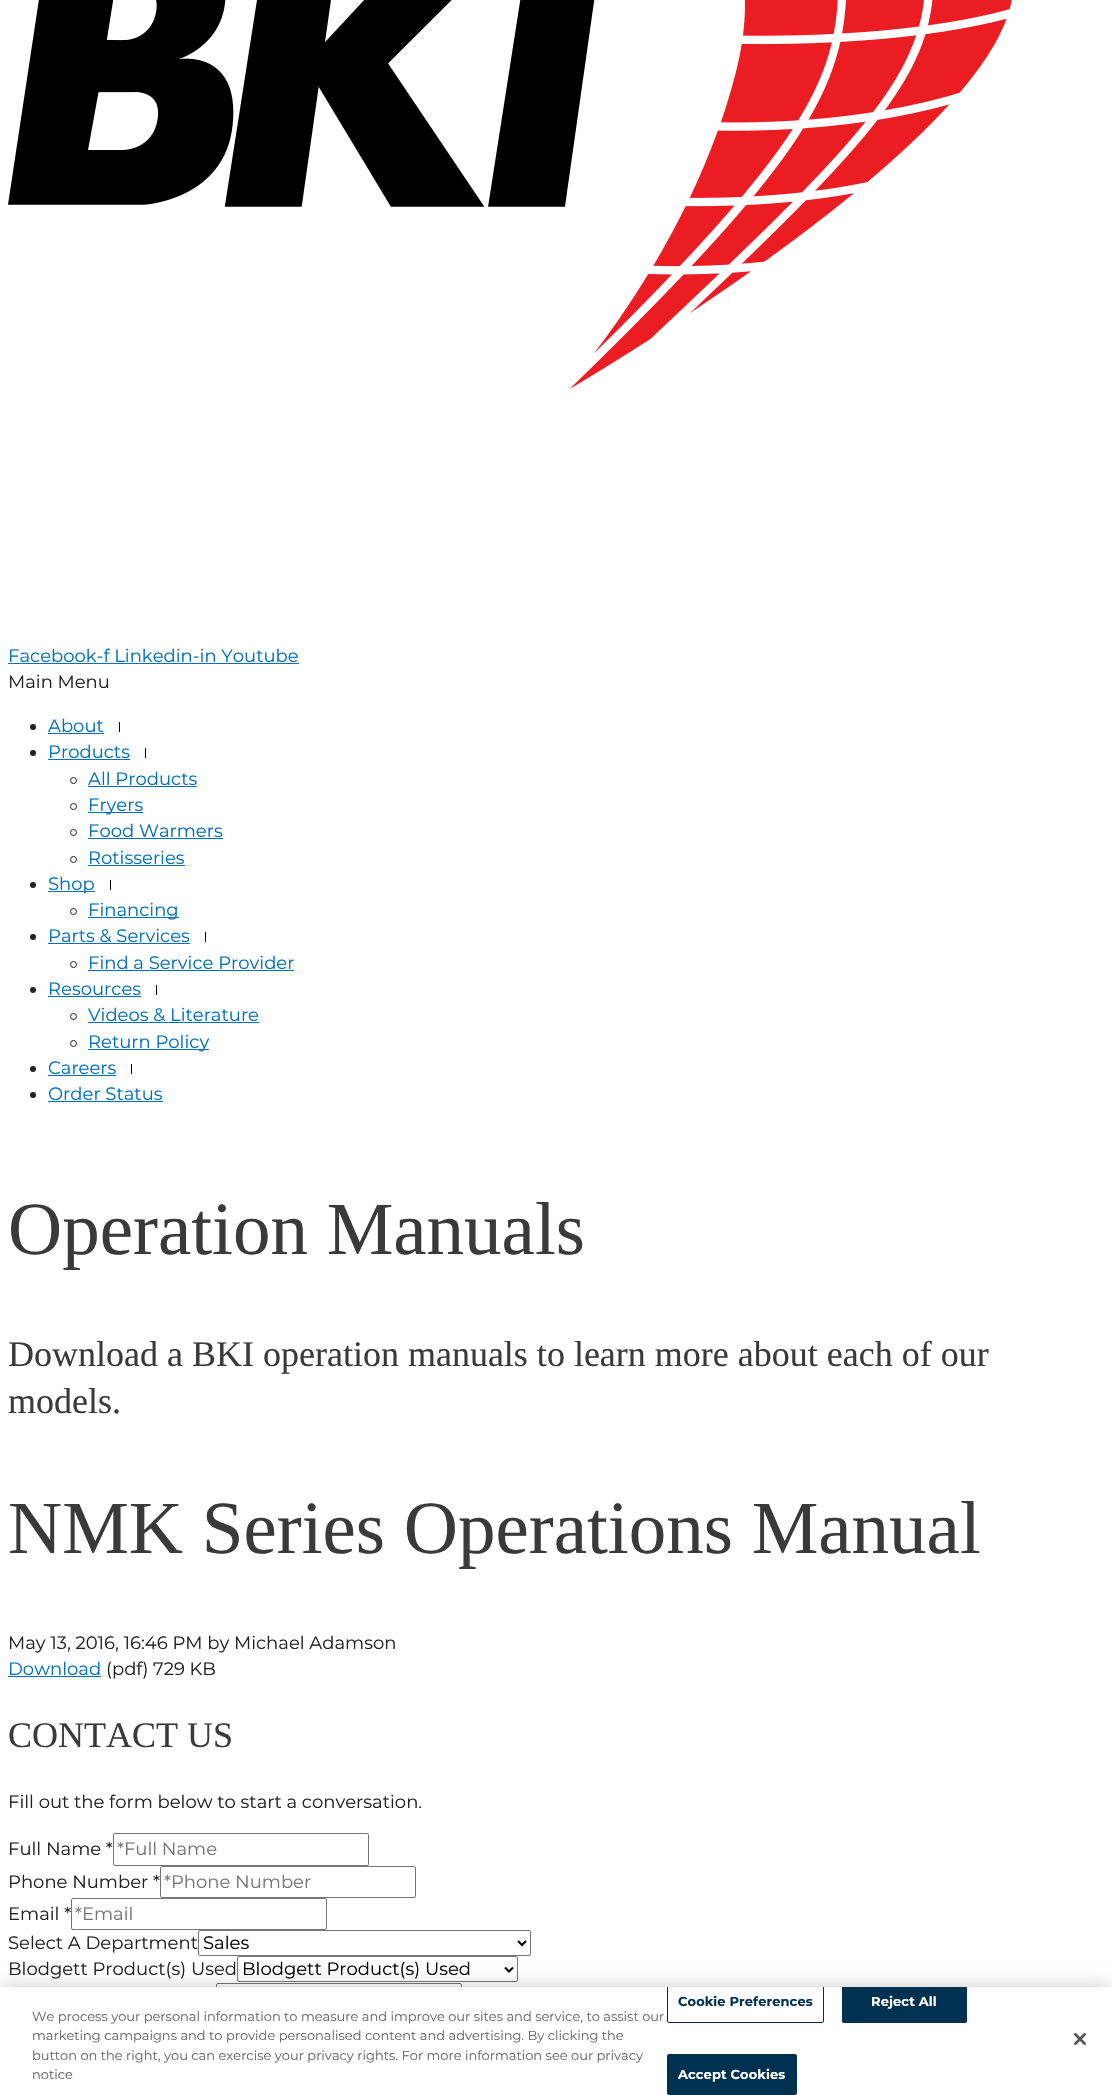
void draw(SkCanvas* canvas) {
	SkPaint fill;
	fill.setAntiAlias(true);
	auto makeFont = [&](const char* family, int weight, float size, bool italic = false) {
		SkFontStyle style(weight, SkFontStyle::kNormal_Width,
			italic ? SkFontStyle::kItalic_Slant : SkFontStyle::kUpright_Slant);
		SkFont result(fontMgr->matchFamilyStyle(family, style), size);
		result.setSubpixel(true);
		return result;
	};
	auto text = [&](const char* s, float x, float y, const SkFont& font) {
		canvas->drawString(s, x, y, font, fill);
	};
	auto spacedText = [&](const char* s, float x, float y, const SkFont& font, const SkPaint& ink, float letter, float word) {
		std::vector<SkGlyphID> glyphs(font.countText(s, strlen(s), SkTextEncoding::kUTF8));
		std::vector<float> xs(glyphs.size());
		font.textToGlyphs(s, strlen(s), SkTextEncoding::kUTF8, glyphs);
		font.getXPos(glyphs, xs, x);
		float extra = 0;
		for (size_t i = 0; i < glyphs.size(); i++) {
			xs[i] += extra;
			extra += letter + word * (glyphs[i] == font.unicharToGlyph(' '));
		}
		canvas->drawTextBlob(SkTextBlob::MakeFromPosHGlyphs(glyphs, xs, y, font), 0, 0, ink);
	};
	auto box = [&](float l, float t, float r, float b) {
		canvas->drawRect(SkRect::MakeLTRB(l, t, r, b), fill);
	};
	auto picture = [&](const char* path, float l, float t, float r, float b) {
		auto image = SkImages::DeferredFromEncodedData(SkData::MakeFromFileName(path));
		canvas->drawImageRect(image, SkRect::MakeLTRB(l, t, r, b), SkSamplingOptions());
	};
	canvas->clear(0xFFFFFFFF);
	picture("image0.png", 8, 0, 1012, 389);
	fill.setColor(0xFF0170B9);
	box(8, 663, 299, 664);
	fill.setColor(0xFF222222);
	canvas->drawCircle(33, 727, 3, fill);
	fill.setColor(0xFF0170B9);
	box(48, 733, 104, 734);
	fill.setColor(0xFF000000);
	box(119, 722, 120, 732);
	fill.setColor(0xFF222222);
	canvas->drawCircle(33, 753, 3, fill);
	fill.setColor(0xFF0170B9);
	box(48, 759, 130, 760);
	fill.setColor(0xFF000000);
	box(145, 748, 146, 758);
	fill.setStyle(SkPaint::kStroke_Style);
	fill.setStrokeWidth(1);
	fill.setColor(0xFF222222);
	canvas->drawCircle(73.5f, 780.5f, 3, fill);
	fill.setStyle(SkPaint::kFill_Style);
	fill.setColor(0xFF0170B9);
	box(88, 786, 197, 787);
	fill.setStyle(SkPaint::kStroke_Style);
	fill.setColor(0xFF222222);
	canvas->drawCircle(73.5f, 806.5f, 3, fill);
	fill.setStyle(SkPaint::kFill_Style);
	fill.setColor(0xFF0170B9);
	box(88, 812, 143, 813);
	fill.setStyle(SkPaint::kStroke_Style);
	fill.setColor(0xFF222222);
	canvas->drawCircle(73.5f, 832.5f, 3, fill);
	fill.setStyle(SkPaint::kFill_Style);
	fill.setColor(0xFF0170B9);
	box(88, 838, 223, 839);
	fill.setStyle(SkPaint::kStroke_Style);
	fill.setColor(0xFF222222);
	canvas->drawCircle(73.5f, 859.5f, 3, fill);
	fill.setStyle(SkPaint::kFill_Style);
	fill.setColor(0xFF0170B9);
	box(88, 865, 185, 866);
	fill.setColor(0xFF222222);
	canvas->drawCircle(33, 885, 3, fill);
	fill.setColor(0xFF0170B9);
	box(48, 891, 95, 892);
	fill.setColor(0xFF000000);
	box(110, 880, 111, 890);
	fill.setStyle(SkPaint::kStroke_Style);
	fill.setColor(0xFF222222);
	canvas->drawCircle(73.5f, 911.5f, 3, fill);
	fill.setStyle(SkPaint::kFill_Style);
	fill.setColor(0xFF0170B9);
	box(88, 917, 179, 918);
	fill.setColor(0xFF222222);
	canvas->drawCircle(33, 937, 3, fill);
	fill.setColor(0xFF0170B9);
	box(48, 943, 190, 944);
	fill.setColor(0xFF000000);
	box(205, 932, 206, 942);
	fill.setStyle(SkPaint::kStroke_Style);
	fill.setColor(0xFF222222);
	canvas->drawCircle(73.5f, 964.5f, 3, fill);
	fill.setStyle(SkPaint::kFill_Style);
	fill.setColor(0xFF0170B9);
	box(88, 970, 294, 971);
	fill.setColor(0xFF222222);
	canvas->drawCircle(33, 990, 3, fill);
	fill.setColor(0xFF0170B9);
	box(48, 996, 141, 997);
	fill.setColor(0xFF000000);
	box(156, 985, 157, 995);
	fill.setStyle(SkPaint::kStroke_Style);
	fill.setColor(0xFF222222);
	canvas->drawCircle(73.5f, 1016.5f, 3, fill);
	fill.setStyle(SkPaint::kFill_Style);
	fill.setColor(0xFF0170B9);
	box(88, 1022, 259, 1023);
	fill.setStyle(SkPaint::kStroke_Style);
	fill.setColor(0xFF222222);
	canvas->drawCircle(73.5f, 1043.5f, 3, fill);
	fill.setStyle(SkPaint::kFill_Style);
	fill.setColor(0xFF0170B9);
	box(88, 1049, 209, 1050);
	fill.setColor(0xFF222222);
	canvas->drawCircle(33, 1069, 3, fill);
	fill.setColor(0xFF0170B9);
	box(48, 1075, 116, 1076);
	fill.setColor(0xFF000000);
	box(131, 1064, 132, 1074);
	fill.setColor(0xFF222222);
	canvas->drawCircle(33, 1095, 3, fill);
	fill.setColor(0xFF0170B9);
	box(48, 1101, 163, 1102);
	box(8, 1676, 101, 1677);
	fill.setStyle(SkPaint::kStroke_Style);
	fill.setColor(0xFF767676);
	canvas->drawRoundRect(SkRect::MakeLTRB(113.5f, 1833.5f, 368.5f, 1865.5f), 1.5f, 1.5f, fill);
	canvas->drawRoundRect(SkRect::MakeLTRB(160.5f, 1866.5f, 415.5f, 1897.5f), 1.5f, 1.5f, fill);
	canvas->drawRoundRect(SkRect::MakeLTRB(71.5f, 1898.5f, 326.5f, 1929.5f), 1.5f, 1.5f, fill);
	canvas->drawRoundRect(SkRect::MakeLTRB(198.5f, 1930.5f, 530.5f, 1955.5f), 1.5f, 1.5f, fill);
	fill.setStrokeWidth(2);
	fill.setColor(0xFF000000);
	canvas->drawPath(SkPathBuilder().moveTo(518, 1941).lineTo(522, 1945).lineTo(526, 1941).detach(), fill);
	fill.setStrokeWidth(1);
	fill.setColor(0xFF767676);
	canvas->drawRoundRect(SkRect::MakeLTRB(237.5f, 1956.5f, 517.5f, 1981.5f), 1.5f, 1.5f, fill);
	fill.setStrokeWidth(2);
	fill.setColor(0xFF000000);
	canvas->drawPath(SkPathBuilder().moveTo(505, 1967.5f).lineTo(509, 1971.5f).lineTo(513, 1967.5f).detach(), fill);
	fill.setStrokeWidth(1);
	fill.setColor(0xFF767676);
	canvas->drawRoundRect(SkRect::MakeLTRB(216.5f, 1983.5f, 461.5f, 2092.5f), 1.5f, 1.5f, fill);
	fill.setStyle(SkPaint::kFill_Style);
	fill.setColor(0x33000000);
	fill.setMaskFilter(SkMaskFilter::MakeBlur(kNormal_SkBlurStyle, 9));
	canvas->drawRect(SkRect::MakeLTRB(0, 1987, 1112, 2095), fill);
	fill.setMaskFilter(nullptr);
	fill.setColor(0xFFFFFFFF);
	box(0, 1987, 1112, 2095);
	canvas->save();
	canvas->clipRect(SkRect::MakeLTRB(0, 1987, 1112, 2095));
	fill.setStyle(SkPaint::kStroke_Style);
	fill.setColor(0xFF003151);
	canvas->drawRoundRect(SkRect::MakeLTRB(667.5f, 1981.5f, 823.5f, 2022.5f), 1.5f, 1.5f, fill);
	canvas->restore();
	fill.setStyle(SkPaint::kFill_Style);
	canvas->drawPath(SkPathBuilder().moveTo(842, 1987).lineTo(967, 1987).lineTo(967, 2021).cubicTo(967, 2022, 966, 2023, 965, 2023).lineTo(844, 2023).cubicTo(843, 2023, 842, 2022, 842, 2021).close().detach(), fill);
	canvas->save();
	canvas->clipRect(SkRect::MakeLTRB(0, 1987, 1112, 2095));
	fill.setStyle(SkPaint::kStroke_Style);
	canvas->drawRoundRect(SkRect::MakeLTRB(842.5f, 1981.5f, 966.5f, 2022.5f), 1.5f, 1.5f, fill);
	canvas->restore();
	fill.setStyle(SkPaint::kFill_Style);
	canvas->drawRoundRect(SkRect::MakeLTRB(667.5f, 2054.5f, 796.5f, 2094.5f), 1.5f, 1.5f, fill);
	fill.setStyle(SkPaint::kStroke_Style);
	canvas->drawRoundRect(SkRect::MakeLTRB(667.5f, 2054.5f, 796.5f, 2094.5f), 1.5f, 1.5f, fill);
	picture("image1.png", 1074, 2033, 1086, 2045);
	auto font1 = makeFont("Montserrat", 400, 18);
	fill.setStyle(SkPaint::kFill_Style);
	fill.setColor(0xFF0170B9);
	text("Facebook-f Linkedin-in Youtube", 8, 662, font1);
	fill.setColor(0xFF222222);
	text("Main Menu", 8, 688, font1);
	fill.setColor(0xFF0170B9);
	text("About", 48, 732, font1);
	text("Products", 48, 758, font1);
	text("All Products", 88, 785, font1);
	text("Fryers", 88, 811, font1);
	text("Food Warmers", 88, 837, font1);
	text("Rotisseries", 88, 864, font1);
	text("Shop", 48, 890, font1);
	text("Financing", 88, 916, font1);
	text("Parts & Services", 48, 942, font1);
	text("Find a Service Provider", 88, 969, font1);
	text("Resources", 48, 995, font1);
	text("Videos & Literature", 88, 1021, font1);
	text("Return Policy", 88, 1048, font1);
	text("Careers", 48, 1074, font1);
	text("Order Status", 48, 1100, font1);
	auto font2 = makeFont("Liberation Serif", 400, 75);
	fill.setColor(0xFF3A3A3A);
	text("Operation Manuals", 8, 1254, font2);
	auto font3 = makeFont("Liberation Serif", 400, 36);
	text("Download a BKI operation manuals to learn more about each of our", 8, 1366, font3);
	text("models.", 8, 1413, font3);
	text("NMK Series Operations Manual", 8, 1553, font2);
	fill.setColor(0xFF222222);
	text("May 13, 2016, 16:46 PM by Michael Adamson", 8, 1649, font1);
	fill.setColor(0xFF0170B9);
	text("Download", 8, 1675, font1);
	fill.setColor(0xFF222222);
	text("(pdf) 729 KB", 106, 1675, font1);
	fill.setColor(0xFF3A3A3A);
	text("CONTACT US", 8, 1747, font3);
	fill.setColor(0xFF222222);
	text("Fill out the form below to start a conversation.", 8, 1808, font1);
	text("Full Name *", 8, 1855, font1);
	fill.setColor(0xFF757575);
	text("*Full Name", 117, 1855, font1);
	fill.setColor(0xFF222222);
	text("Phone Number *", 8, 1888, font1);
	fill.setColor(0xFF757575);
	text("*Phone Number", 164, 1888, font1);
	fill.setColor(0xFF222222);
	text("Email *", 8, 1920, font1);
	fill.setColor(0xFF757575);
	text("*Email", 75, 1920, font1);
	fill.setColor(0xFF222222);
	text("Select A Department", 8, 1949, font1);
	fill.setColor(0xFF000000);
	text("Sales", 203, 1949, font1);
	fill.setColor(0xFF222222);
	text("Blodgett Product(s) Used", 8, 1975, font1);
	fill.setColor(0xFF000000);
	text("Blodgett Product(s) Used", 242, 1975, font1);
	auto font4 = makeFont("Montserrat", 400, 13);
	fill.setColor(0xFF696969);
	text("We process your personal information to measure and improve our sites and service, to assist our", 32, 2021, font4);
	text("marketing campaigns and to provide personalised content and advertising. By clicking the", 32, 2040, font4);
	text("button on the right, you can exercise your privacy rights. For more information see our privacy", 32, 2060, font4);
	text("notice", 32, 2079, font4);
	auto font5 = makeFont("Montserrat", 700, 13);
	fill.setColor(0xFF003151);
	spacedText("Cookie Preferences", 678, 2006, font5, fill, 0.1f, 0);
	fill.setColor(0xFFFFFFFF);
	spacedText("Reject All", 871, 2006, font5, fill, 0.1f, 0);
	spacedText("Accept Cookies", 678, 2079, font5, fill, 0.1f, 0);
}
